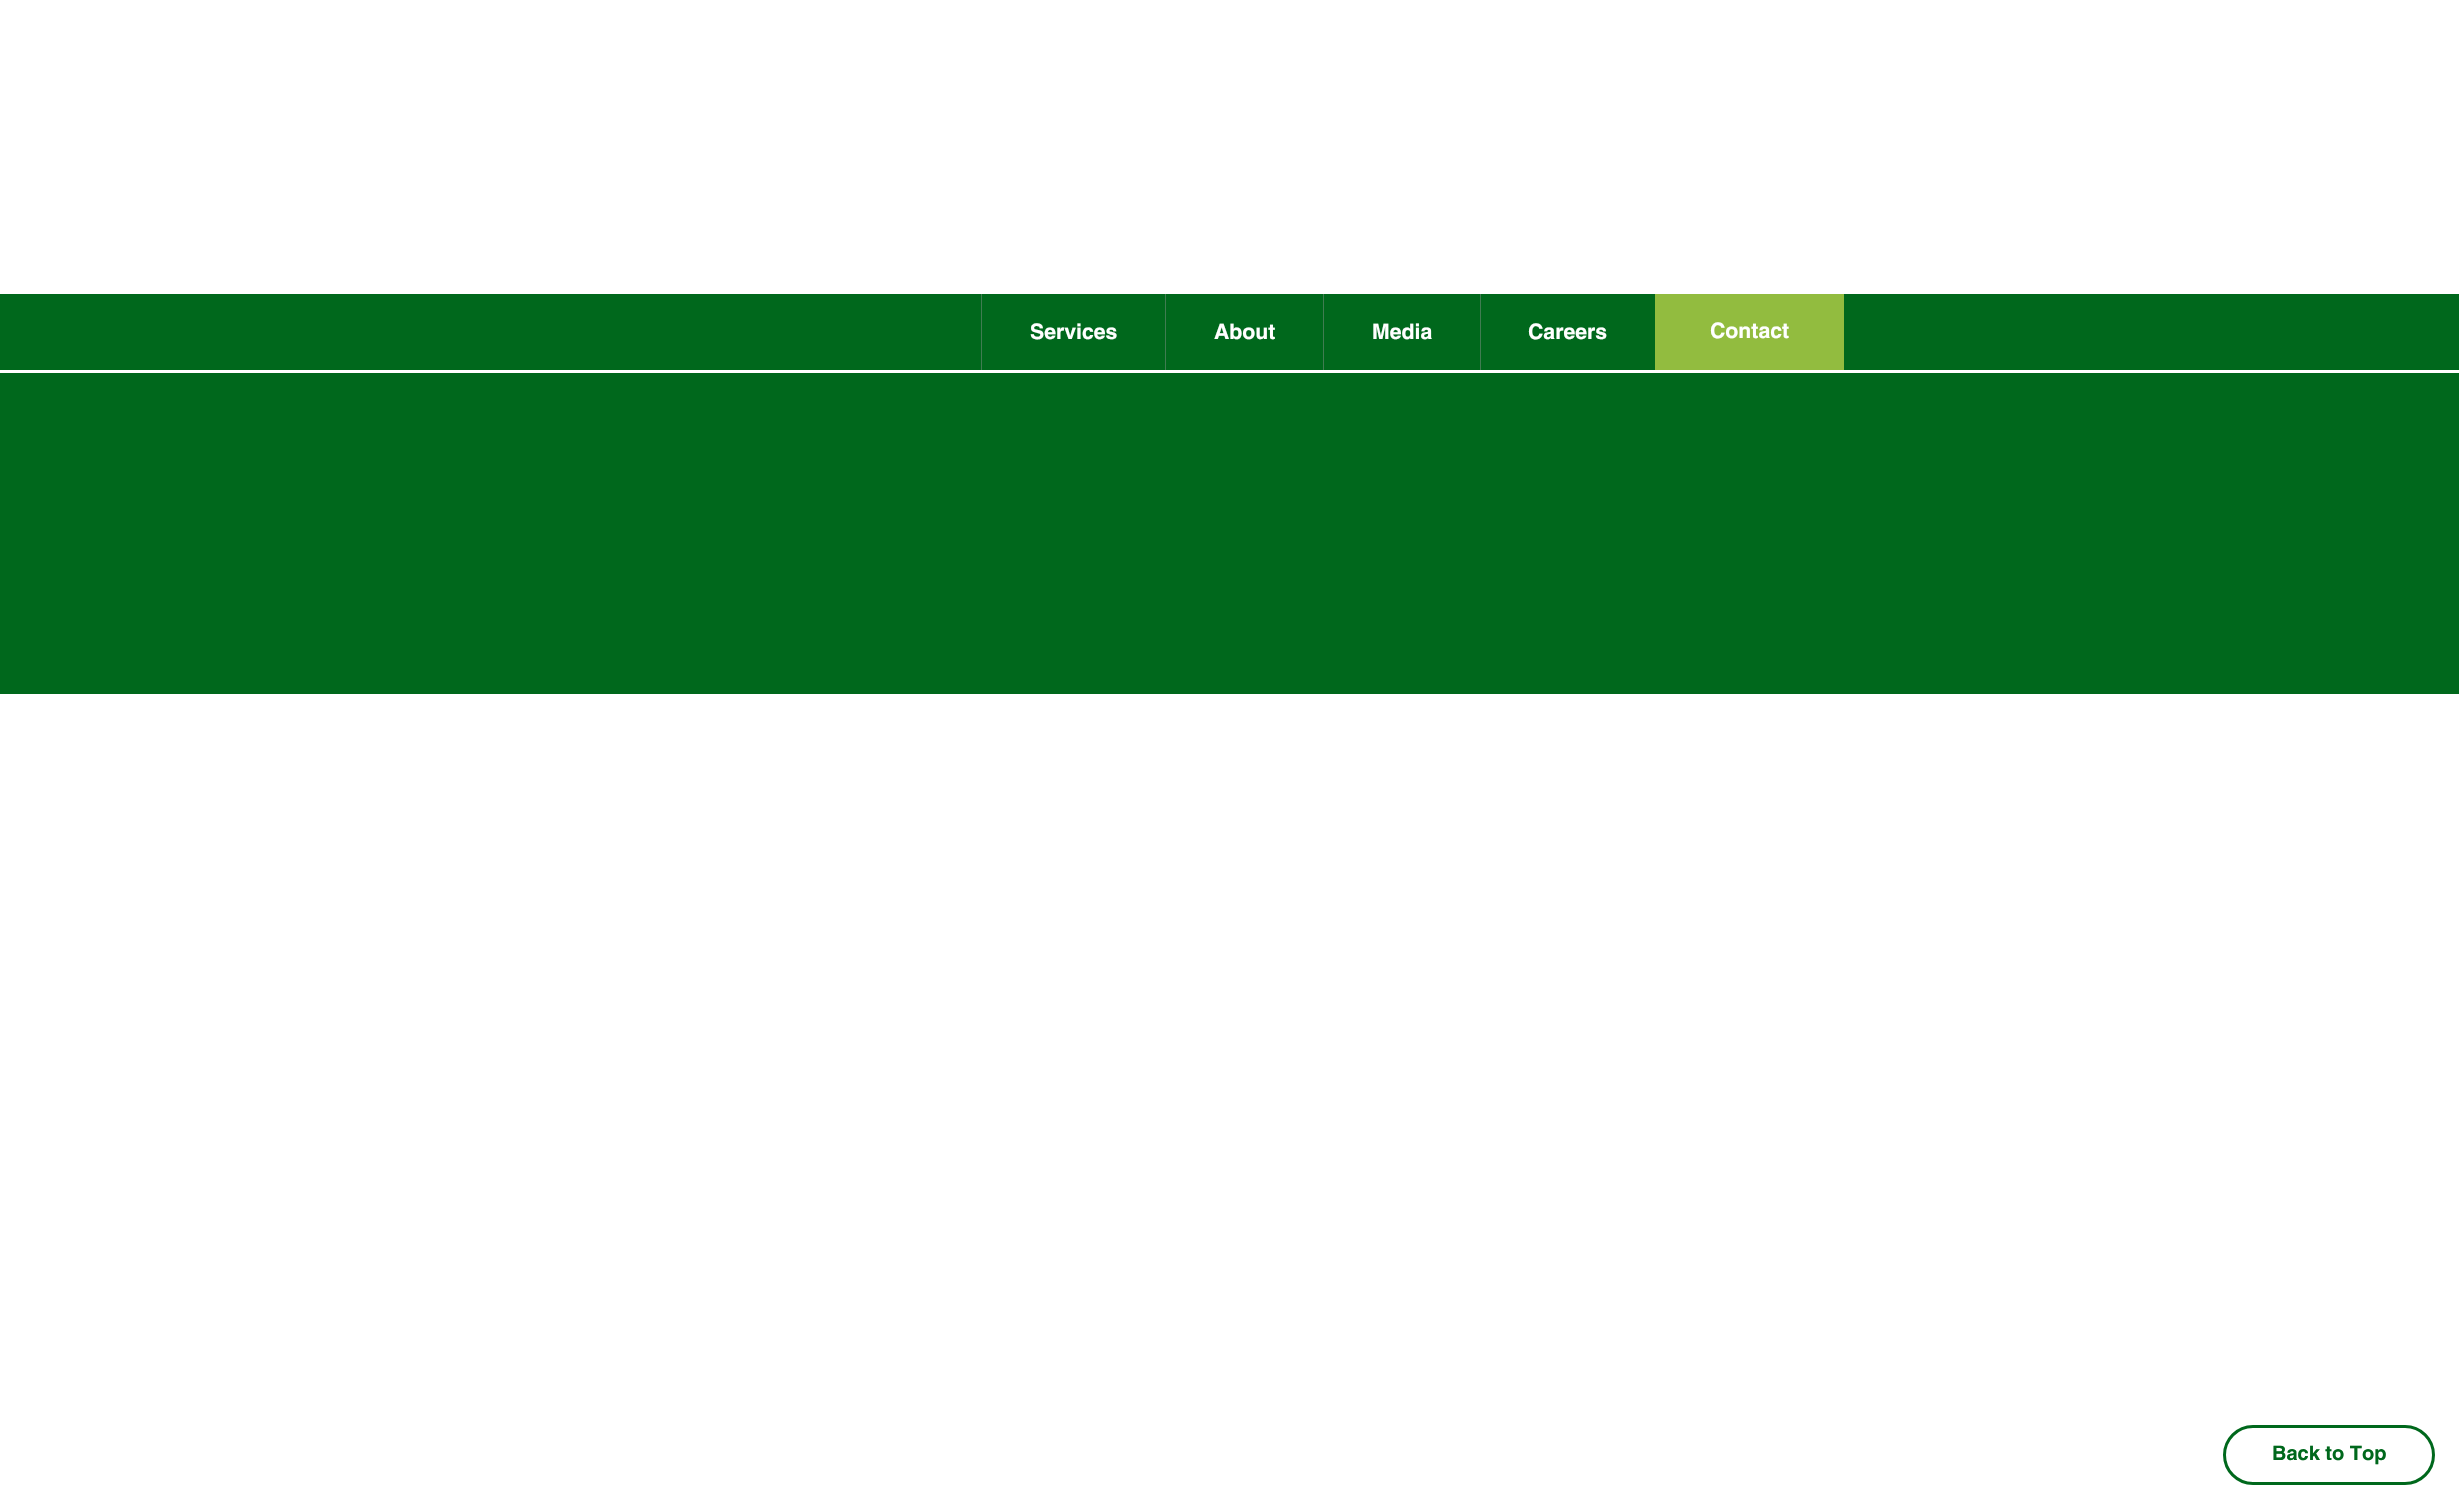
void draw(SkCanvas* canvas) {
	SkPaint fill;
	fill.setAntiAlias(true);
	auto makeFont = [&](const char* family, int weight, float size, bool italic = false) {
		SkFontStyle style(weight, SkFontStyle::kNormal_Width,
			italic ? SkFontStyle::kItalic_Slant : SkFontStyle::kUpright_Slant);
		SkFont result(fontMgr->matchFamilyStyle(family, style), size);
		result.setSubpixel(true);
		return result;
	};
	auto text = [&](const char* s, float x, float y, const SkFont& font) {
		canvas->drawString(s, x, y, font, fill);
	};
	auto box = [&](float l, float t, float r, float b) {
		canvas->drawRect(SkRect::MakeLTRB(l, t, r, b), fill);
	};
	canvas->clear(0xFFFFFFFF);
	fill.setColor(0xFF00681C);
	box(0, 294, 2459, 370);
	fill.setColor(0xFF407C51);
	box(981, 294, 982, 370);
	box(1165, 294, 1166, 370);
	box(1323, 294, 1324, 370);
	box(1480, 294, 1481, 370);
	fill.setColor(0xFF92BC3F);
	box(1655, 294, 1844, 370);
	fill.setColor(0xFF00681C);
	box(0, 373, 2459, 694);
	fill.setStyle(SkPaint::kStroke_Style);
	fill.setStrokeWidth(3);
	canvas->drawRoundRect(SkRect::MakeLTRB(2224.5f, 1426.5f, 2433.5f, 1483.5f), 28.5f, 28.5f, fill);
	auto font1 = makeFont("helvetica", 700, 21.25f);
	fill.setStyle(SkPaint::kFill_Style);
	fill.setColor(0xFFFFFFFF);
	text("Services", 1030, 339, font1);
	text("About", 1214, 339, font1);
	text("Media", 1372, 339, font1);
	text("Careers", 1528, 339, font1);
	text("Contact", 1710, 338, font1);
	auto font2 = makeFont("helvetica", 700, 20);
	fill.setColor(0xFF00681C);
	text("Back to Top", 2272, 1460, font2);
}
